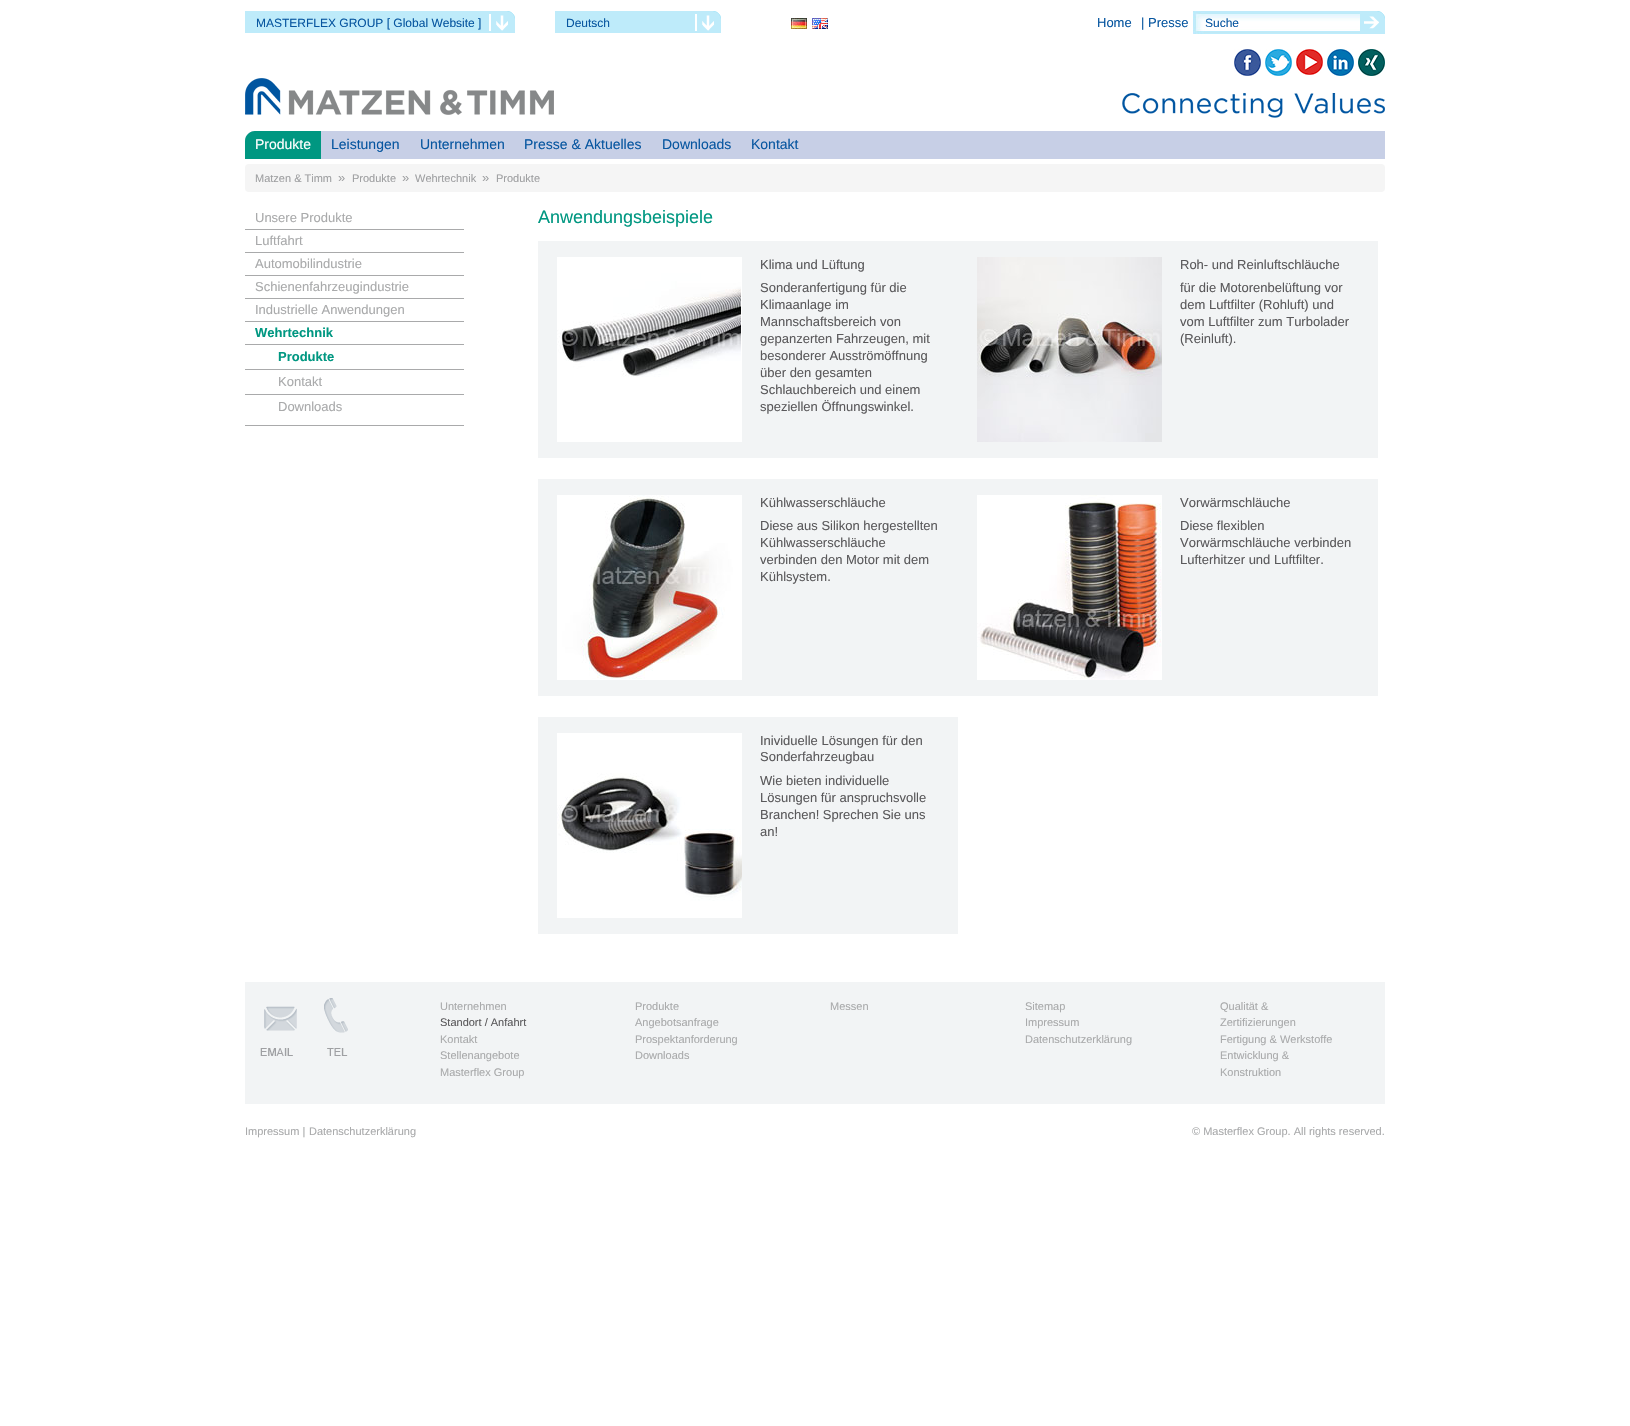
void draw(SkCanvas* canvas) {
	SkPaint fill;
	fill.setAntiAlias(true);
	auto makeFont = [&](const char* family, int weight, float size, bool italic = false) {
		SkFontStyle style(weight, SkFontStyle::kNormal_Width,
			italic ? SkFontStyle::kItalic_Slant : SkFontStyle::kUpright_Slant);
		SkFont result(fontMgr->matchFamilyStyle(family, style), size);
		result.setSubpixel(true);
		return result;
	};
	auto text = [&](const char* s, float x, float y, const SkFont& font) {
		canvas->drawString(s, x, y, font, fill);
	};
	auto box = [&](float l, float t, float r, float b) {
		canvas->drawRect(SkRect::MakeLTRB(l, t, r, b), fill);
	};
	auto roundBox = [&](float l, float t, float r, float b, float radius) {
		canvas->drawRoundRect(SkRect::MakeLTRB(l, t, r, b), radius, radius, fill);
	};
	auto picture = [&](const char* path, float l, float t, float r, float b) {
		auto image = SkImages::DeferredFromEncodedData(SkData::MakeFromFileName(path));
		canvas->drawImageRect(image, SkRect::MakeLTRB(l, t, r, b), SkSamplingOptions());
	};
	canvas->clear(0xFFFFFFFF);
	picture("image0.png", 245, 11, 515, 33);
	picture("image1.png", 555, 11, 721, 33);
	picture("image2.png", 791, 18, 807, 29);
	picture("image3.png", 812, 18, 828, 29);
	picture("image4.png", 1193, 11, 1205, 34);
	picture("image5.png", 1205, 11, 1360, 34);
	picture("image6.png", 1360, 11, 1385, 34);
	picture("image7.png", 1234, 49, 1261, 76);
	picture("image8.png", 1265, 49, 1292, 76);
	picture("image9.png", 1296, 49, 1323, 75);
	picture("image10.png", 1327, 49, 1354, 76);
	picture("image11.png", 1358, 49, 1385, 76);
	picture("image12.png", 245, 78, 554, 115);
	picture("image13.png", 1122, 93, 1385, 118);
	fill.setColor(0xFFC7CFE6);
	canvas->drawPath(SkPathBuilder().moveTo(255, 131).lineTo(1385, 131).lineTo(1385, 159).lineTo(245, 159).lineTo(245, 141).cubicTo(245, 135.5f, 249.5f, 131, 255, 131).close().detach(), fill);
	fill.setColor(0xFF009781);
	canvas->drawPath(SkPathBuilder().moveTo(255, 131).lineTo(321, 131).lineTo(321, 159).lineTo(245, 159).lineTo(245, 141).cubicTo(245, 135.5f, 249.5f, 131, 255, 131).close().detach(), fill);
	fill.setColor(0xFFF5F5F5);
	roundBox(245, 164, 1385, 192, 4);
	fill.setColor(0xFFA9AAAB);
	box(245, 229, 464, 230);
	box(245, 252, 464, 253);
	box(245, 275, 464, 276);
	box(245, 298, 464, 299);
	box(245, 321, 464, 322);
	box(245, 344, 464, 345);
	box(245, 425, 464, 426);
	box(245, 369, 464, 370);
	box(245, 394, 464, 395);
	fill.setColor(0xFFF2F4F5);
	box(538, 241, 1378, 458);
	picture("image14.png", 557, 257, 742, 442);
	picture("image15.png", 977, 257, 1162, 442);
	box(538, 479, 1378, 696);
	picture("image16.png", 557, 495, 742, 680);
	picture("image17.png", 977, 495, 1162, 680);
	box(538, 717, 958, 934);
	picture("image18.png", 557, 733, 742, 918);
	box(245, 982, 1385, 1104);
	picture("image19.png", 260, 1006, 297, 1056);
	picture("image20.png", 324, 998, 348, 1056);
	auto font1 = makeFont("Liberation Sans", 400, 12);
	fill.setColor(0xFF0756A0);
	text("MASTERFLEX GROUP [ Global Website ]", 256, 27, font1);
	text("Deutsch", 566, 27, font1);
	auto font2 = makeFont("Liberation Sans", 400, 13);
	text("Home", 1097, 27, font2);
	text("| Presse", 1141, 27, font2);
	text("Suche", 1205, 27, font1);
	auto font3 = makeFont("Liberation Sans", 400, 14);
	fill.setColor(0xFFFFFFFF);
	text("Produkte", 255, 149, font3);
	fill.setColor(0xFF0756A0);
	text("Leistungen", 331, 149, font3);
	text("Unternehmen", 420, 149, font3);
	text("Presse & Aktuelles", 524, 149, font3);
	text("Downloads", 662, 149, font3);
	text("Kontakt", 751, 149, font3);
	auto font4 = makeFont("Liberation Sans", 400, 11);
	fill.setColor(0xFF9E9FA1);
	text("Matzen & Timm", 255, 182, font4);
	text("»", 338, 182, font2);
	text("Produkte", 352, 182, font4);
	text("»", 402, 182, font2);
	text("Wehrtechnik", 415, 182, font4);
	text("»", 482, 182, font2);
	text("Produkte", 496, 182, font4);
	fill.setColor(0xFFA9AAAB);
	text("Unsere Produkte", 255, 222, font2);
	text("Luftfahrt", 255, 245, font2);
	text("Automobilindustrie", 255, 268, font2);
	text("Schienenfahrzeugindustrie", 255, 291, font2);
	text("Industrielle Anwendungen", 255, 314, font2);
	auto font5 = makeFont("Liberation Sans", 700, 13);
	fill.setColor(0xFF009781);
	text("Wehrtechnik", 255, 337, font5);
	text("Produkte", 278, 361, font5);
	fill.setColor(0xFFA9AAAB);
	text("Kontakt", 278, 386, font2);
	text("Downloads", 278, 411, font2);
	auto font6 = makeFont("Liberation Sans", 400, 18);
	fill.setColor(0xFF009781);
	text("Anwendungsbeispiele", 538, 223, font6);
	fill.setColor(0xFF5A595B);
	text("Klima und Lüftung", 760, 269, font2);
	text("Sonderanfertigung für die", 760, 292, font2);
	text("Klimaanlage im", 760, 309, font2);
	text("Mannschaftsbereich von", 760, 326, font2);
	text("gepanzerten Fahrzeugen, mit", 760, 343, font2);
	text("besonderer Ausströmöffnung", 760, 360, font2);
	text("über den gesamten", 760, 377, font2);
	text("Schlauchbereich und einem", 760, 394, font2);
	text("speziellen Öffnungswinkel.", 760, 411, font2);
	text("Roh- und Reinluftschläuche", 1180, 269, font2);
	text("für die Motorenbelüftung vor", 1180, 292, font2);
	text("dem Luftfilter (Rohluft) und", 1180, 309, font2);
	text("vom Luftfilter zum Turbolader", 1180, 326, font2);
	text("(Reinluft).", 1180, 343, font2);
	text("Kühlwasserschläuche", 760, 507, font2);
	text("Diese aus Silikon hergestellten", 760, 530, font2);
	text("Kühlwasserschläuche", 760, 547, font2);
	text("verbinden den Motor mit dem", 760, 564, font2);
	text("Kühlsystem.", 760, 581, font2);
	text("Vorwärmschläuche", 1180, 507, font2);
	text("Diese flexiblen", 1180, 530, font2);
	text("Vorwärmschläuche verbinden", 1180, 547, font2);
	text("Lufterhitzer und Luftfilter.", 1180, 564, font2);
	text("Inividuelle Lösungen für den", 760, 745, font2);
	text("Sonderfahrzeugbau", 760, 761, font2);
	text("Wie bieten individuelle", 760, 785, font2);
	text("Lösungen für anspruchsvolle", 760, 802, font2);
	text("Branchen! Sprechen Sie uns", 760, 819, font2);
	text("an!", 760, 836, font2);
	fill.setColor(0xFFA9AAAB);
	text("Unternehmen", 440, 1010, font4);
	fill.setColor(0xFF5A595B);
	text("Standort / Anfahrt", 440, 1026, font4);
	fill.setColor(0xFFA9AAAB);
	text("Kontakt", 440, 1043, font4);
	text("Stellenangebote", 440, 1059, font4);
	text("Masterflex Group", 440, 1076, font4);
	text("Produkte", 635, 1010, font4);
	text("Angebotsanfrage", 635, 1026, font4);
	text("Prospektanforderung", 635, 1043, font4);
	text("Downloads", 635, 1059, font4);
	text("Messen", 830, 1010, font4);
	text("Sitemap", 1025, 1010, font4);
	text("Impressum", 1025, 1026, font4);
	text("Datenschutzerklärung", 1025, 1043, font4);
	text("Qualität &", 1220, 1010, font4);
	text("Zertifizierungen", 1220, 1026, font4);
	text("Fertigung & Werkstoffe", 1220, 1043, font4);
	text("Entwicklung &", 1220, 1059, font4);
	text("Konstruktion", 1220, 1076, font4);
	text("Impressum |", 245, 1135, font4);
	text("Datenschutzerklärung", 309, 1135, font4);
	text("© Masterflex Group. All rights reserved.", 1192, 1135, font4);
}
